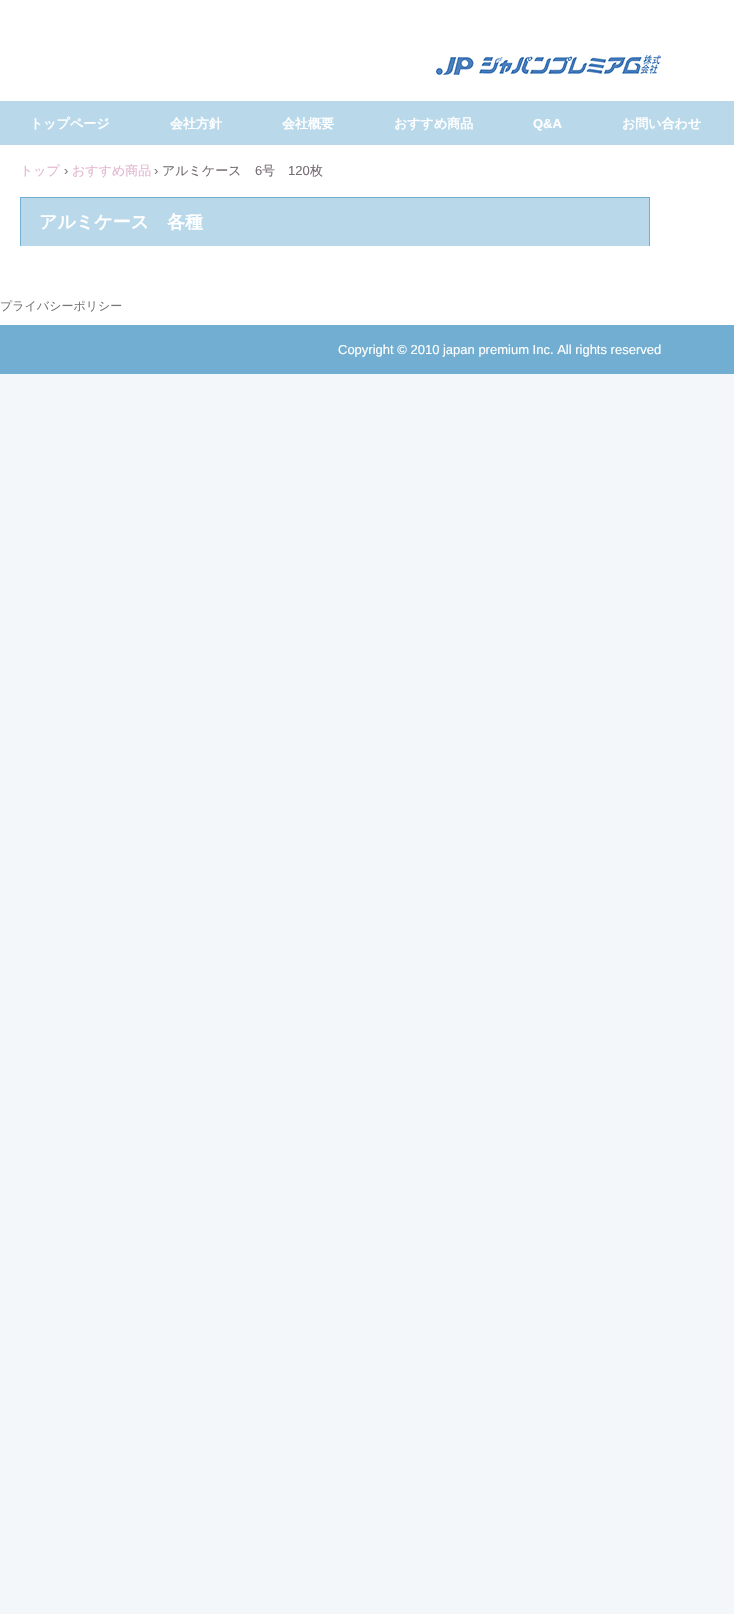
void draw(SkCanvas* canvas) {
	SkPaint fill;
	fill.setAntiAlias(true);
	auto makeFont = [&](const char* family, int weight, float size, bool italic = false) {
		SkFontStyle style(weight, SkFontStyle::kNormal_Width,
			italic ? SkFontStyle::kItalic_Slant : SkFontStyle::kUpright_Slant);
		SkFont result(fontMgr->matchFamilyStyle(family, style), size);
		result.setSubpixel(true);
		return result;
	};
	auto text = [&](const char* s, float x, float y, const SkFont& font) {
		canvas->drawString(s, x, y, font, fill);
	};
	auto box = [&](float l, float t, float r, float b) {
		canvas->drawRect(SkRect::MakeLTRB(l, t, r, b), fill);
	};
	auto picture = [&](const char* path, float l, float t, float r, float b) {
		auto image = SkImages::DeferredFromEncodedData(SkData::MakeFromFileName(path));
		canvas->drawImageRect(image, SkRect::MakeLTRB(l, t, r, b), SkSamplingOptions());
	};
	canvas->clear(0xFFF3F7F9);
	fill.setColor(0xFFFFFFFF);
	box(0, 0, 734, 101);
	picture("image0.png", 436, 55, 661, 75);
	box(0, 145, 734, 325);
	fill.setColor(0xFFB9D9EB);
	box(0, 101, 734, 145);
	fill.setColor(0xFF72AED1);
	box(20, 197, 650, 198);
	box(649, 197, 650, 246);
	box(20, 197, 21, 246);
	fill.setColor(0xFFB9D9EB);
	box(21, 198, 649, 246);
	fill.setColor(0xFF72AED1);
	box(0, 325, 734, 374);
	auto font1 = makeFont("WenQuanYi Zen Hei", 700, 13);
	fill.setColor(0xFFFFFFFF);
	text("トップページ", 30, 128, font1);
	text("会社方針", 170, 128, font1);
	text("会社概要", 282, 128, font1);
	text("おすすめ商品", 394, 128, font1);
	auto font2 = makeFont("Liberation Sans", 700, 13);
	text("Q&A", 533, 128, font2);
	text("お問い合わせ", 622, 128, font1);
	auto font3 = makeFont("WenQuanYi Zen Hei", 500, 13);
	fill.setColor(0xFFE3B7CF);
	text("トップ", 20, 175, font3);
	auto font4 = makeFont("Liberation Sans", 400, 13);
	fill.setColor(0xFF756D73);
	text("›", 64, 175, font4);
	fill.setColor(0xFFE3B7CF);
	text("おすすめ商品", 72, 175, font3);
	fill.setColor(0xFF756D73);
	text("›", 154, 175, font4);
	text("アルミケース", 162, 175, font3);
	text("6", 255, 175, font4);
	text("号", 262, 175, font3);
	text("120", 288, 175, font4);
	text("枚", 310, 175, font3);
	auto font5 = makeFont("WenQuanYi Zen Hei", 700, 18);
	fill.setColor(0xFFFFFFFF);
	text("アルミケース　各種", 39, 228, font5);
	auto font6 = makeFont("WenQuanYi Zen Hei", 500, 12);
	fill.setColor(0xFF787878);
	text("プライバシーポリシー", 0, 310, font6);
	fill.setColor(0xFFFFFFFF);
	text("Copyright © 2010 japan premium Inc. All rights reserved", 338, 354, font4);
}
